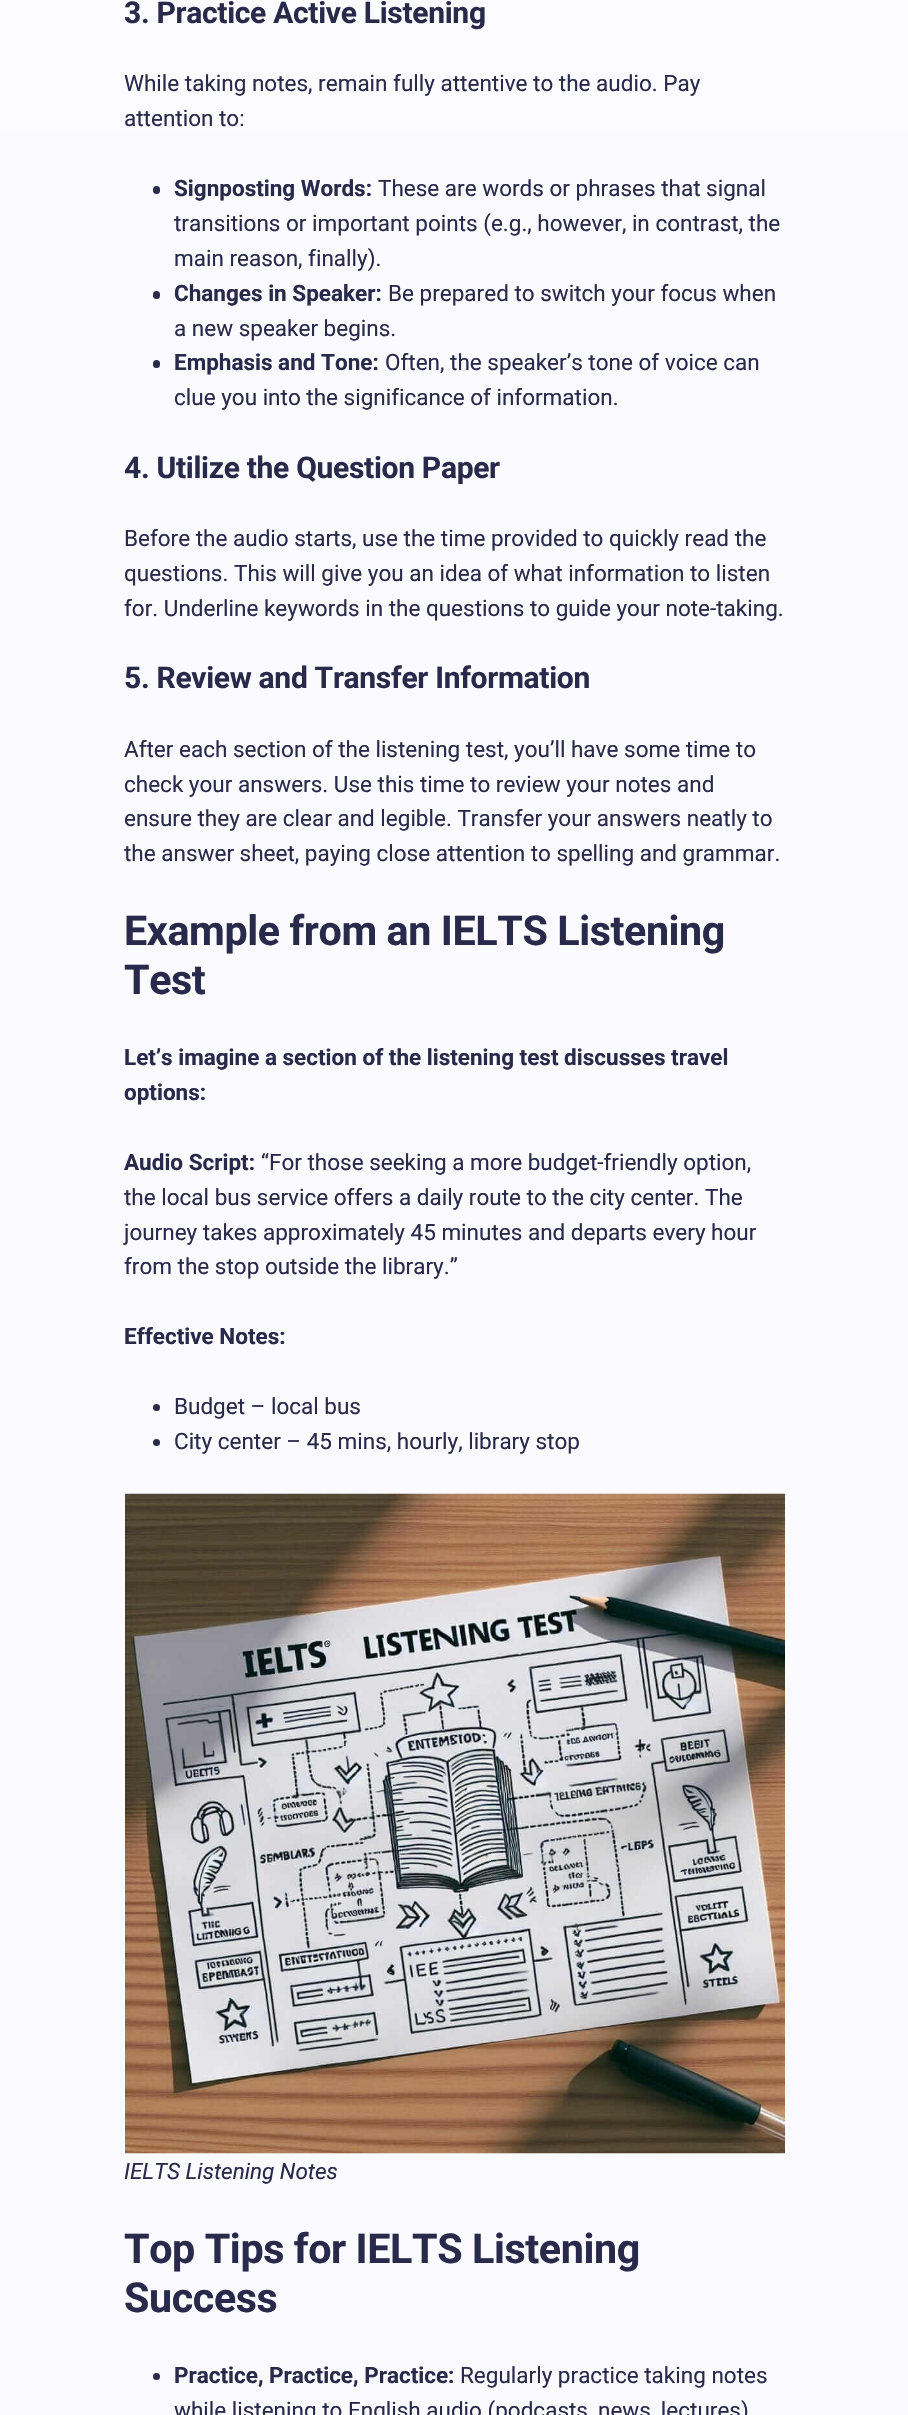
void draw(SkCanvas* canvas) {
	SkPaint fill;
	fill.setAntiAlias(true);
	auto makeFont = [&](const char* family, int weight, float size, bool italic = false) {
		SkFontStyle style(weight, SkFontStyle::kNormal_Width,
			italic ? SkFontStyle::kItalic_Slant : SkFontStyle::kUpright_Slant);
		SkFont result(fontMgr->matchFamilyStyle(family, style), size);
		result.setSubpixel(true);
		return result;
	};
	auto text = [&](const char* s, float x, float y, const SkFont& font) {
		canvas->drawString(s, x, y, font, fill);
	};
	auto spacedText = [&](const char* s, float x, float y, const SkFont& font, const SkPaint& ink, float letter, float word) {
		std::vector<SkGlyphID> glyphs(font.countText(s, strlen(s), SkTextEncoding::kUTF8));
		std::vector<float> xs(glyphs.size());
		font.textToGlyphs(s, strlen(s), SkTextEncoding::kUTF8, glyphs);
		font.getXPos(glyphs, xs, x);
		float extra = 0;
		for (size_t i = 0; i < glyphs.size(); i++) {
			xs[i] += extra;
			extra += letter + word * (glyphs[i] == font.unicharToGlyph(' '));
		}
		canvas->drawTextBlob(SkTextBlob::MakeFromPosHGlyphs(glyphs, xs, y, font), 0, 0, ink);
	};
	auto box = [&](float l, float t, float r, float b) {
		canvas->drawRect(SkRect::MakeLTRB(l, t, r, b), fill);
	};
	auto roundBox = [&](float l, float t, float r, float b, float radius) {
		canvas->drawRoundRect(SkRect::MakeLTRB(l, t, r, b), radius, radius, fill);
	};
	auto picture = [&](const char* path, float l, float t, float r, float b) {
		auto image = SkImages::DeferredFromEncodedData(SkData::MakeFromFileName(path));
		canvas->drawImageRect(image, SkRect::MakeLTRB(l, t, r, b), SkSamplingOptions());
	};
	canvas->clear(0xFFFFFFFF);
	{
		const SkColor colors[] = {0xFFFDFDFF, 0xFFF8F7FF};
		const float stops[] = {0, 1};
		const SkPoint ends[] = {{454, -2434}, {454, 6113}};
		fill.setShader(SkGradientShader::MakeLinear(ends, colors, stops, 2, SkTileMode::kClamp));
		fill.setAlpha(255);
	}
	box(0, 0, 908, 2415);
	fill.setShader(nullptr);
	fill.setColor(0xFF29294B);
	roundBox(153, 186, 160, 194, 3.5f);
	roundBox(153, 291, 160, 299, 3.5f);
	roundBox(153, 360, 160, 368, 3.5f);
	canvas->drawCircle(156.5f, 1407.5f, 3.5f, fill);
	canvas->drawCircle(156.5f, 1442.5f, 3.5f, fill);
	picture("image0.png", 125, 1493, 785, 2154);
	canvas->drawCircle(156.5f, 2376.5f, 3.5f, fill);
	auto font1 = makeFont("Roboto", 700, 30);
	spacedText("3. Practice Active Listening", 124, 23, font1, fill, -0.3f, 0);
	auto font2 = makeFont("Roboto", 400, 22.5f);
	text("While taking notes, remain fully attentive to the audio. Pay", 124, 91, font2);
	text("attention to:", 124, 126, font2);
	auto font3 = makeFont("Roboto", 700, 22.5f);
	text("Signposting Words:", 174, 196, font3);
	text("These are words or phrases that signal", 378, 196, font2);
	text("transitions or important points (e.g., however, in contrast, the", 174, 231, font2);
	text("main reason, finally).", 174, 266, font2);
	text("Changes in Speaker:", 174, 301, font3);
	text("Be prepared to switch your focus when", 388, 301, font2);
	text("a new speaker begins.", 174, 336, font2);
	text("Emphasis and Tone:", 174, 370, font3);
	text("Often, the speaker’s tone of voice can", 385, 370, font2);
	text("clue you into the significance of information.", 174, 405, font2);
	spacedText("4. Utilize the Question Paper", 124, 478, font1, fill, -0.3f, 0);
	text("Before the audio starts, use the time provided to quickly read the", 124, 546, font2);
	text("questions. This will give you an idea of what information to listen", 124, 581, font2);
	text("for. Underline keywords in the questions to guide your note-taking.", 124, 616, font2);
	spacedText("5. Review and Transfer Information", 124, 688, font1, fill, -0.3f, 0);
	text("After each section of the listening test, you’ll have some time to", 124, 757, font2);
	text("check your answers. Use this time to review your notes and", 124, 792, font2);
	text("ensure they are clear and legible. Transfer your answers neatly to", 124, 826, font2);
	text("the answer sheet, paying close attention to spelling and grammar.", 124, 861, font2);
	auto font4 = makeFont("Roboto", 700, 41.25f);
	spacedText("Example from an IELTS Listening", 124, 945, font4, fill, -0.4f, 0);
	spacedText("Test", 124, 994, font4, fill, -0.4f, 0);
	text("Let’s imagine a section of the listening test discusses travel", 124, 1065, font3);
	text("options:", 124, 1100, font3);
	text("Audio Script:", 124, 1170, font3);
	text("“For those seeking a more budget-friendly option,", 261, 1170, font2);
	text("the local bus service offers a daily route to the city center. The", 124, 1205, font2);
	text("journey takes approximately 45 minutes and departs every hour", 124, 1240, font2);
	text("from the stop outside the library.”", 124, 1274, font2);
	text("Effective Notes:", 124, 1344, font3);
	text("Budget – local bus", 174, 1414, font2);
	text("City center – 45 mins, hourly, library stop", 174, 1449, font2);
	auto font5 = makeFont("Roboto", 400, 22.5f, true);
	text("IELTS Listening Notes", 124, 2179, font5);
	spacedText("Top Tips for IELTS Listening", 124, 2263, font4, fill, -0.4f, 0);
	spacedText("Success", 124, 2312, font4, fill, -0.4f, 0);
	text("Practice, Practice, Practice:", 174, 2383, font3);
	text("Regularly practice taking notes", 460, 2383, font2);
	text("while listening to English audio (podcasts, news, lectures)", 174, 2418, font2);
}
